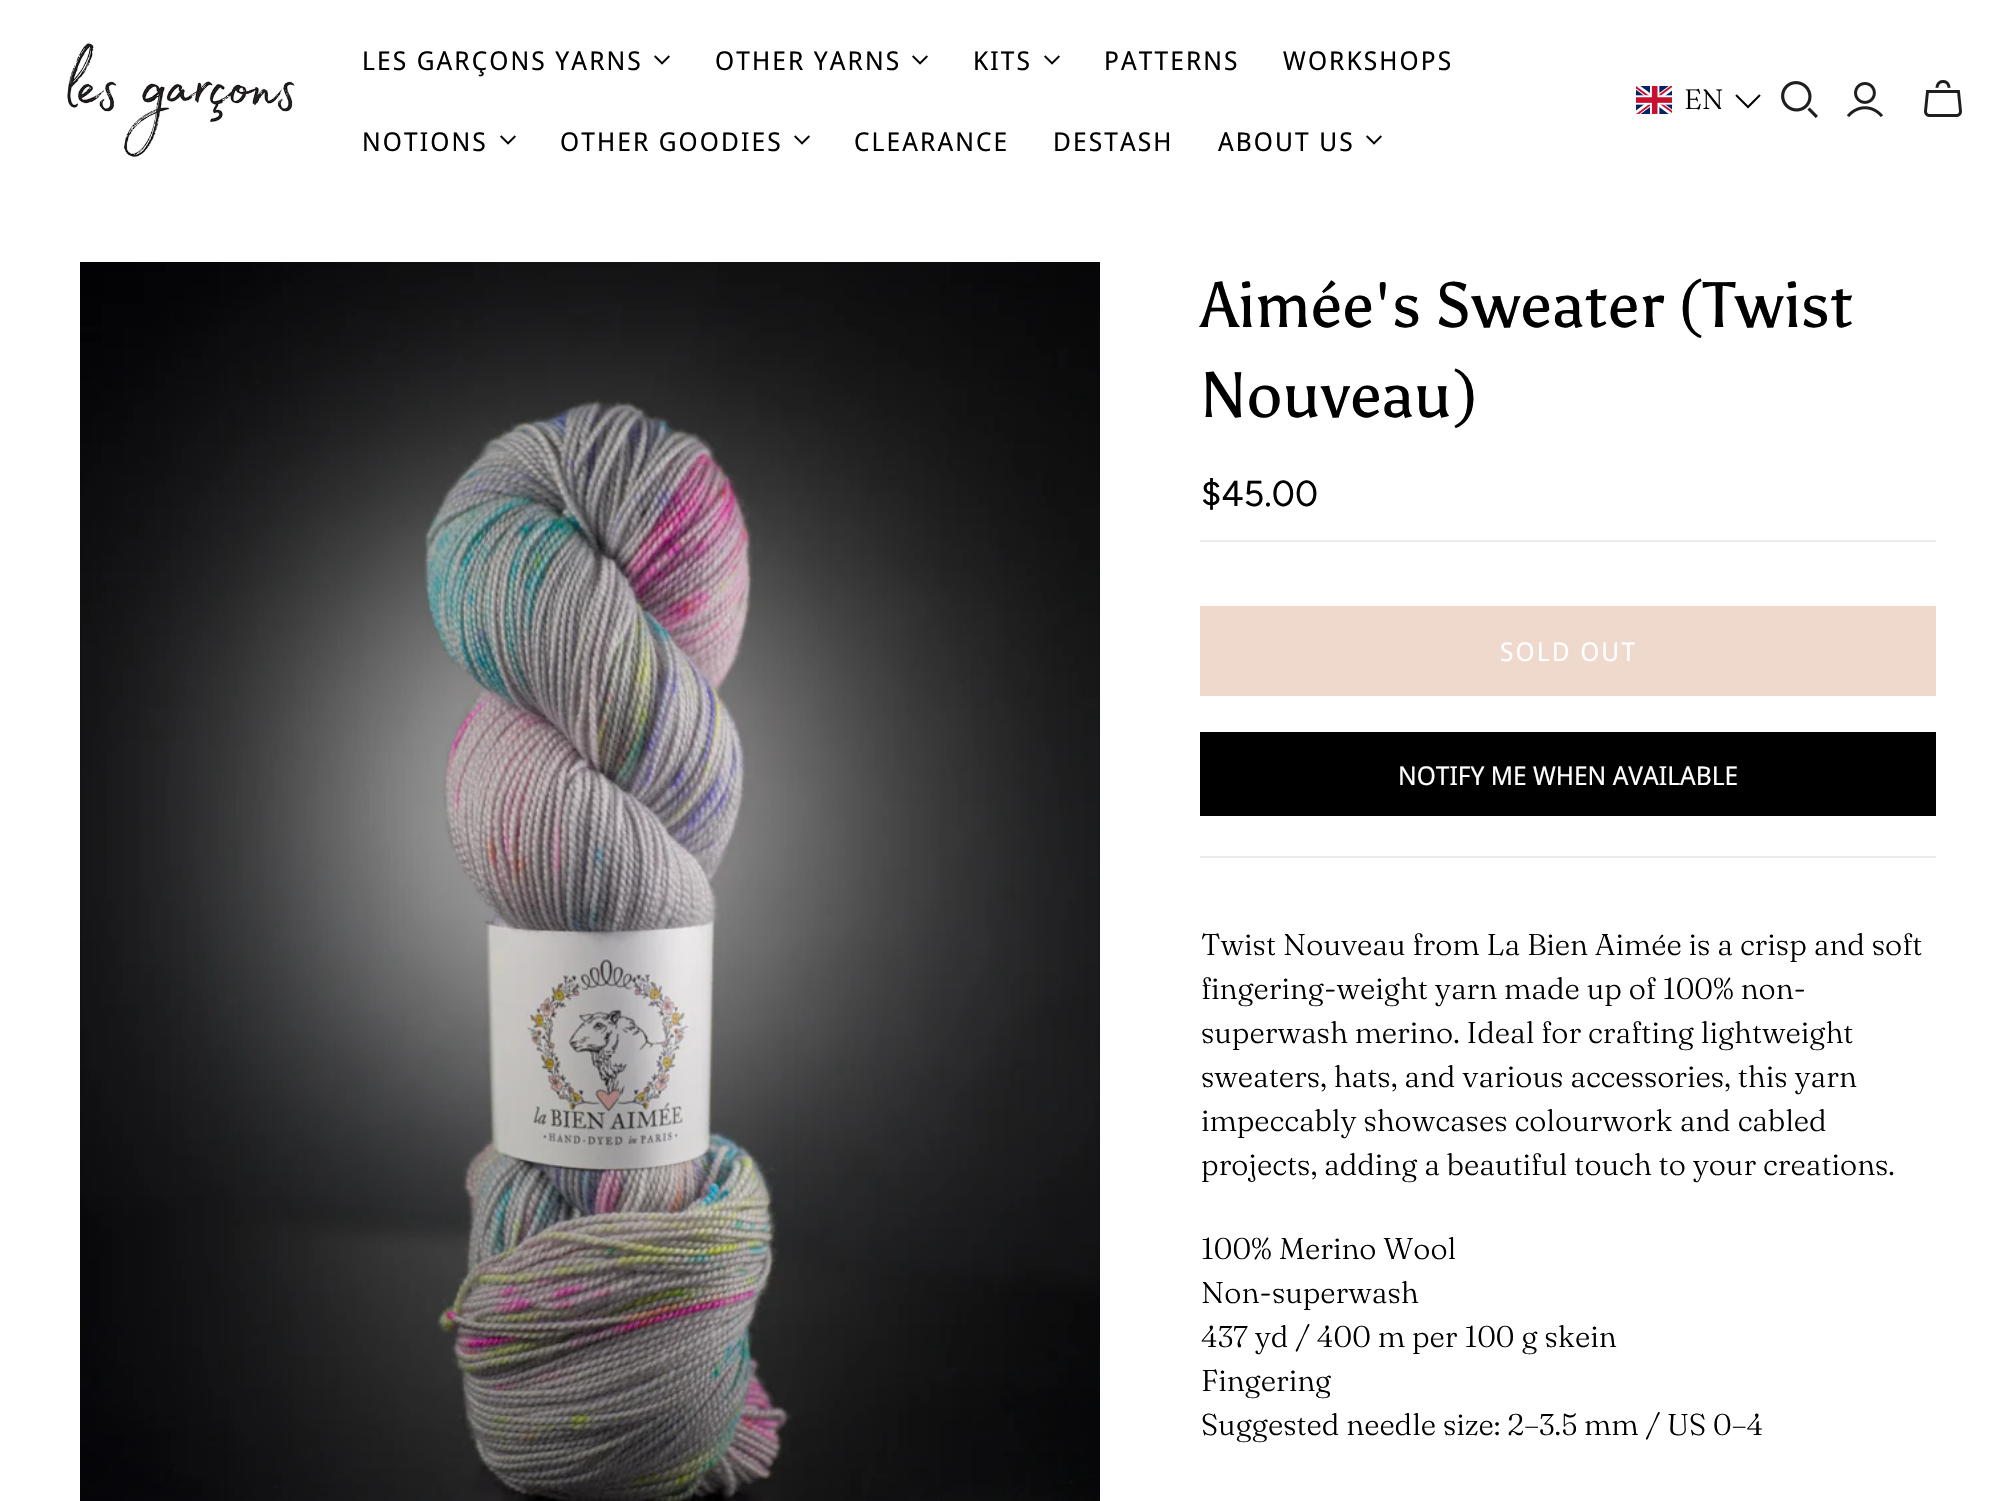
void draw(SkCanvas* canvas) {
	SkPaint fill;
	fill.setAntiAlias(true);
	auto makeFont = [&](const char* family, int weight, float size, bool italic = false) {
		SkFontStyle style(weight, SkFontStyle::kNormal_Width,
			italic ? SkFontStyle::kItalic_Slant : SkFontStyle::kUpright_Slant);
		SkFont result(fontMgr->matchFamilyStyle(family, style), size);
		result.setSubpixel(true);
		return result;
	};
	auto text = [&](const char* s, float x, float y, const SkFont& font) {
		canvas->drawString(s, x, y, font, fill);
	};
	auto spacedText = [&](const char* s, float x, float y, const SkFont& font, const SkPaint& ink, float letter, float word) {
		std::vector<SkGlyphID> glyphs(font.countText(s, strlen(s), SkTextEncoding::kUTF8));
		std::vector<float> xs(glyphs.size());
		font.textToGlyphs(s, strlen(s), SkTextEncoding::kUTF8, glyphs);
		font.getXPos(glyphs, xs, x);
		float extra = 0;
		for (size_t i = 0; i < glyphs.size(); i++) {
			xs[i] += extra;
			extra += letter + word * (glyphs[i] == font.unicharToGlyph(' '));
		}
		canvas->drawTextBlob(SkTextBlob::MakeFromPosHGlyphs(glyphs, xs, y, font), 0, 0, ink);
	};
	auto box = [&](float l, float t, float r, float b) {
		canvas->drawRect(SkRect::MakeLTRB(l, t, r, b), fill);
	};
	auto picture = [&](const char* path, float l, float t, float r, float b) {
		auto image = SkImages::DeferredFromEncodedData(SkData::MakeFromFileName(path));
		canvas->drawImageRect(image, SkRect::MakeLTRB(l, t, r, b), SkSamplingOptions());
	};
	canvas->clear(0xFFFFFFFF);
	picture("image0.png", 67, 43, 295, 158);
	picture("image1.png", 654, 55, 670, 65);
	picture("image1.png", 912, 55, 928, 65);
	picture("image1.png", 1044, 55, 1060, 65);
	picture("image1.png", 500, 135, 516, 145);
	picture("image1.png", 794, 135, 810, 145);
	picture("image1.png", 1366, 135, 1382, 145);
	picture("image2.png", 1636, 86, 1672, 114);
	fill.setStyle(SkPaint::kStroke_Style);
	fill.setStrokeWidth(2);
	fill.setColor(0xFF000000);
	canvas->drawPath(SkPathBuilder().moveTo(1736, 95).lineTo(1748, 107).lineTo(1760, 95).detach(), fill);
	picture("image3.png", 1781, 81, 1818, 118);
	picture("image4.png", 1846, 82, 1883, 117);
	picture("image5.png", 1924, 80, 1962, 117);
	picture("image6.png", 80, 262, 1100, 1501);
	fill.setColor(0x1A000000);
	canvas->drawRect(SkRect::MakeLTRB(81, 263, 1099, 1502), fill);
	fill.setStyle(SkPaint::kFill_Style);
	fill.setColor(0xFFEBEBEB);
	box(1200, 540, 1936, 542);
	box(1200, 856, 1936, 858);
	fill.setColor(0xFFEFD9CD);
	box(1200, 606, 1936, 696);
	fill.setColor(0xFF000000);
	box(1200, 732, 1936, 816);
	auto font1 = makeFont("Noto Sans Display", 400, 26);
	spacedText("LES GARÇONS YARNS", 362, 70, font1, fill, 2.1f, 0);
	spacedText("OTHER YARNS", 715, 70, font1, fill, 2.1f, 0);
	spacedText("KITS", 973, 70, font1, fill, 2.1f, 0);
	spacedText("PATTERNS", 1104, 70, font1, fill, 2.1f, 0);
	spacedText("WORKSHOPS", 1283, 70, font1, fill, 2.1f, 0);
	spacedText("NOTIONS", 362, 151, font1, fill, 2.1f, 0);
	spacedText("OTHER GOODIES", 560, 151, font1, fill, 2.1f, 0);
	spacedText("CLEARANCE", 854, 151, font1, fill, 2.1f, 0);
	spacedText("DESTASH", 1053, 151, font1, fill, 2.1f, 0);
	spacedText("ABOUT US", 1218, 151, font1, fill, 2.1f, 0);
	auto font2 = makeFont("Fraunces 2", 300, 28);
	text("EN", 1684, 109, font2);
	auto font3 = makeFont("Asul", 400, 64);
	text("Aimée's Sweater (Twist", 1201, 327, font3);
	text("Nouveau)", 1201, 417, font3);
	auto font4 = makeFont("Figtree", 400, 36);
	text("$45.00", 1201, 506, font4);
	fill.setColor(0xFFFFFFFF);
	spacedText("SOLD OUT", 1500, 661, font1, fill, 2.1f, 0);
	text("NOTIFY ME WHEN AVAILABLE", 1398, 785, font1);
	auto font5 = makeFont("Fraunces", 300, 30);
	fill.setColor(0xFF000000);
	text("Twist Nouveau from La Bien Aimée is a crisp and soft", 1201, 955, font5);
	text("fingering-weight yarn made up of 100% non-", 1201, 999, font5);
	text("superwash merino. Ideal for crafting lightweight", 1201, 1043, font5);
	text("sweaters, hats, and various accessories, this yarn", 1201, 1087, font5);
	text("impeccably showcases colourwork and cabled", 1201, 1131, font5);
	text("projects, adding a beautiful touch to your creations.", 1201, 1175, font5);
	text("100% Merino Wool", 1201, 1259, font5);
	text("Non-superwash", 1201, 1303, font5);
	text("437 yd / 400 m per 100 g skein", 1201, 1347, font5);
	text("Fingering", 1201, 1391, font5);
	text("Suggested needle size: 2–3.5 mm / US 0–4", 1201, 1435, font5);
}
